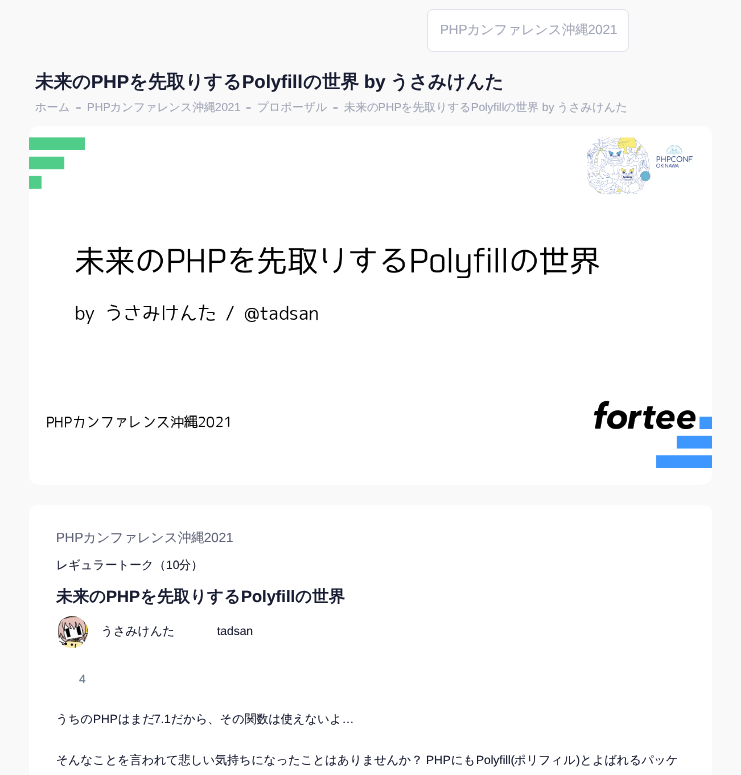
void draw(SkCanvas* canvas) {
	SkPaint fill;
	fill.setAntiAlias(true);
	auto makeFont = [&](const char* family, int weight, float size, bool italic = false) {
		SkFontStyle style(weight, SkFontStyle::kNormal_Width,
			italic ? SkFontStyle::kItalic_Slant : SkFontStyle::kUpright_Slant);
		SkFont result(fontMgr->matchFamilyStyle(family, style), size);
		result.setSubpixel(true);
		return result;
	};
	auto text = [&](const char* s, float x, float y, const SkFont& font) {
		canvas->drawString(s, x, y, font, fill);
	};
	auto roundBox = [&](float l, float t, float r, float b, float radius) {
		canvas->drawRoundRect(SkRect::MakeLTRB(l, t, r, b), radius, radius, fill);
	};
	auto picture = [&](const char* path, float l, float t, float r, float b) {
		auto image = SkImages::DeferredFromEncodedData(SkData::MakeFromFileName(path));
		canvas->drawImageRect(image, SkRect::MakeLTRB(l, t, r, b), SkSamplingOptions());
	};
	canvas->clear(0xFFF9F9F9);
	fill.setColor(0xFFFFFFFF);
	canvas->drawRoundRect(SkRect::MakeLTRB(427.5f, 9.5f, 628.5f, 51.5f), 5.5f, 5.5f, fill);
	fill.setStyle(SkPaint::kStroke_Style);
	fill.setStrokeWidth(1);
	fill.setColor(0xFFE1E3EA);
	canvas->drawRoundRect(SkRect::MakeLTRB(427.5f, 9.5f, 628.5f, 51.5f), 5.5f, 5.5f, fill);
	fill.setStyle(SkPaint::kFill_Style);
	fill.setColor(0xFFB5B5C3);
	roundBox(76, 107, 81, 109, 1);
	roundBox(246, 107, 251, 109, 1);
	roundBox(333, 107, 338, 109, 1);
	picture("image0.png", 29, 126, 712, 485);
	fill.setColor(0xFFFFFFFF);
	roundBox(29, 505, 712, 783, 8);
	picture("image1.png", 58, 616, 88, 648);
	auto font1 = makeFont("Liberation Sans", 400, 13.25f);
	fill.setColor(0xFFA1A5B7);
	text("PHP", 440, 34, font1);
	auto font2 = makeFont("WenQuanYi Zen Hei", 500, 13.25f);
	text("カンファレンス沖縄", 467, 34, font2);
	text("2021", 588, 34, font1);
	auto font3 = makeFont("WenQuanYi Zen Hei", 700, 18.5f);
	fill.setColor(0xFF181C32);
	text("未来の", 35, 88, font3);
	auto font4 = makeFont("Liberation Sans", 700, 18.5f);
	text("PHP", 91, 88, font4);
	text("を先取りする", 129, 88, font3);
	text("Polyfill", 242, 88, font4);
	text("の世界", 303, 88, font3);
	text("by", 364, 88, font4);
	text("うさみけんた", 390, 88, font3);
	auto font5 = makeFont("WenQuanYi Zen Hei", 500, 11.5f);
	fill.setColor(0xFFA1A5B7);
	text("ホーム", 35, 111, font5);
	auto font6 = makeFont("Liberation Sans", 400, 11.5f);
	text("PHP", 87, 111, font6);
	text("カンファレンス沖縄", 110, 111, font5);
	text("2021", 215, 111, font6);
	text("プロポーザル", 257, 111, font5);
	text("未来の", 344, 111, font5);
	text("PHP", 378, 111, font6);
	text("を先取りする", 401, 111, font5);
	text("Polyfill", 471, 111, font6);
	text("の世界", 504, 111, font5);
	text("by", 542, 111, font6);
	text("うさみけんた", 557, 111, font5);
	fill.setColor(0xFF5E6278);
	text("PHP", 56, 542, font1);
	text("カンファレンス沖縄", 83, 542, font2);
	text("2021", 204, 542, font1);
	auto font7 = makeFont("WenQuanYi Zen Hei", 500, 12);
	fill.setColor(0xFF181C32);
	text("レギュラートーク（", 56, 569, font7);
	auto font8 = makeFont("Liberation Sans", 400, 12);
	text("10", 166, 569, font8);
	text("分）", 179, 569, font7);
	auto font9 = makeFont("WenQuanYi Zen Hei", 700, 16.5f);
	text("未来の", 56, 602, font9);
	auto font10 = makeFont("Liberation Sans", 700, 16.5f);
	text("PHP", 106, 602, font10);
	text("を先取りする", 140, 602, font9);
	text("Polyfill", 241, 602, font10);
	text("の世界", 295, 602, font9);
	text("うさみけんた", 101, 635, font7);
	text("tadsan", 217, 635, font8);
	fill.setColor(0xFF657786);
	text("4", 79, 683, font8);
	fill.setColor(0xFF181C32);
	text("うちの", 56, 723, font7);
	text("PHP", 93, 723, font8);
	text("はまだ", 118, 723, font7);
	text("7.1", 154, 723, font8);
	text("だから、その関数は使えないよ", 171, 723, font7);
	text("…", 342, 723, font8);
	text("そんなことを言われて悲しい気持ちになったことはありませんか？", 56, 764, font7);
	text("PHP", 426, 764, font8);
	text("にも", 451, 764, font7);
	text("Polyfill(", 476, 764, font8);
	text("ポリフィル", 514, 764, font7);
	text(")", 576, 764, font8);
	text("とよばれるパッケ", 580, 764, font7);
}
